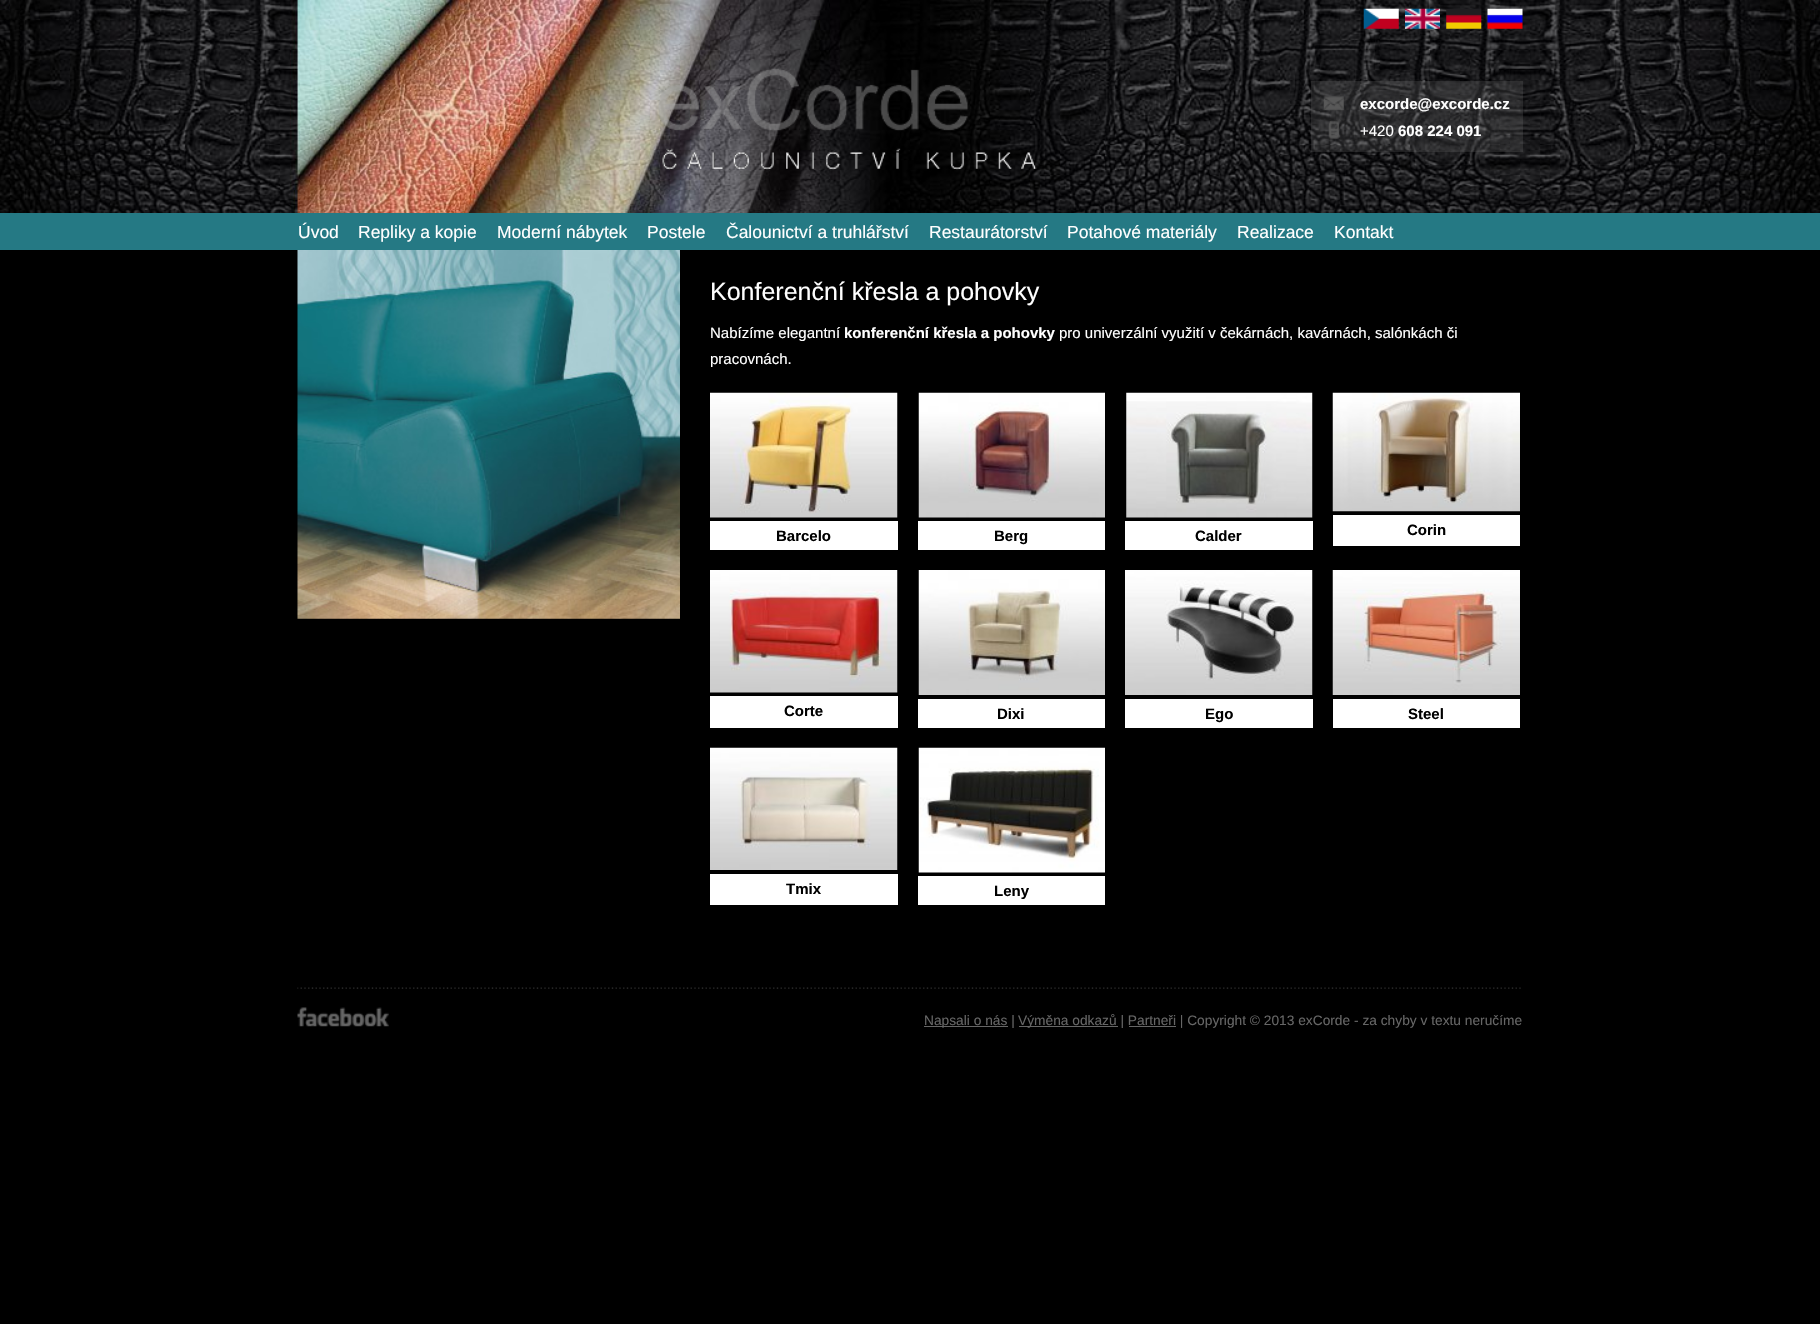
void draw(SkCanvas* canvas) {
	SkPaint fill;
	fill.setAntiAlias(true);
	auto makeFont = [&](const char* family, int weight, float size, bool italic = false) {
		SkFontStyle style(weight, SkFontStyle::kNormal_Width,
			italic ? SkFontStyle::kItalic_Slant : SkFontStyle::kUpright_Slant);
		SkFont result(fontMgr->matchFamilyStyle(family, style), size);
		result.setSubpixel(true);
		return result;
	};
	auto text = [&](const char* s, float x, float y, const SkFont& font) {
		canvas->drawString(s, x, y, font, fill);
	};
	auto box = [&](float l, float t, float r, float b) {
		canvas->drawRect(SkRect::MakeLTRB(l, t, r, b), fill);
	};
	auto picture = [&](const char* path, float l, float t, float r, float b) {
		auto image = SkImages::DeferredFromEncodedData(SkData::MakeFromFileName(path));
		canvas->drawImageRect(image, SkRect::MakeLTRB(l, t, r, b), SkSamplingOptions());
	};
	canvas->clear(0xFF000000);
	picture("image0.png", 0, 0, 1820, 213);
	picture("image1.png", 1363, 8, 1399, 29);
	picture("image2.png", 1405, 8, 1440, 29);
	picture("image3.png", 1446, 8, 1482, 29);
	picture("image4.png", 1487, 8, 1523, 29);
	picture("image5.png", 658, 68, 1037, 170);
	fill.setColor(0x33828282);
	box(1311, 81, 1523, 152);
	picture("image6.png", 1323, 96, 1344, 111);
	picture("image7.png", 1328, 121, 1339, 139);
	fill.setColor(0xFF257984);
	box(0, 213, 1820, 250);
	picture("image8.png", 297, 250, 680, 619);
	picture("image9.png", 710, 392, 898, 518);
	fill.setColor(0xFFFFFFFF);
	box(710, 521, 898, 550);
	picture("image10.png", 918, 392, 1105, 518);
	box(918, 521, 1105, 550);
	picture("image11.png", 1126, 392, 1313, 518);
	box(1125, 521, 1313, 550);
	picture("image12.png", 1332, 392, 1520, 512);
	box(1333, 515, 1520, 546);
	picture("image13.png", 710, 570, 898, 693);
	box(710, 696, 898, 728);
	picture("image14.png", 918, 570, 1105, 695);
	box(918, 699, 1105, 728);
	picture("image15.png", 1125, 570, 1313, 695);
	box(1125, 699, 1313, 728);
	picture("image16.png", 1332, 570, 1520, 695);
	box(1333, 699, 1520, 728);
	picture("image17.png", 710, 747, 898, 870);
	box(710, 874, 898, 905);
	picture("image18.png", 918, 747, 1105, 873);
	box(918, 876, 1105, 905);
	picture("image19.png", 297, 987, 1521, 989);
	picture("image20.png", 297, 1007, 389, 1027);
	fill.setColor(0xFF666666);
	box(924, 1026, 1008, 1027);
	box(1019, 1026, 1118, 1027);
	box(1129, 1026, 1176, 1027);
	auto font1 = makeFont("Liberation Sans", 700, 15);
	fill.setColor(0xFFFFFFFF);
	text("excorde@excorde.cz", 1360, 109, font1);
	auto font2 = makeFont("Liberation Sans", 400, 15);
	text("+420", 1360, 136, font2);
	text("608 224 091", 1398, 136, font1);
	auto font3 = makeFont("Liberation Sans", 400, 17.5f);
	text("Úvod", 298, 238, font3);
	text("Repliky a kopie", 358, 238, font3);
	text("Moderní nábytek", 497, 238, font3);
	text("Postele", 647, 238, font3);
	text("Čalounictví a truhlářství", 726, 238, font3);
	text("Restaurátorství", 929, 238, font3);
	text("Potahové materiály", 1067, 238, font3);
	text("Realizace", 1237, 238, font3);
	text("Kontakt", 1334, 238, font3);
	auto font4 = makeFont("Liberation Sans", 400, 25);
	text("Konferenční křesla a pohovky", 710, 300, font4);
	text("Nabízíme elegantní", 710, 338, font2);
	text("konferenční křesla a pohovky", 844, 338, font1);
	text("pro univerzální využití v čekárnách, kavárnách, salónkách či", 1059, 338, font2);
	text("pracovnách.", 710, 364, font2);
	fill.setColor(0xFF000000);
	text("Barcelo", 776, 541, font1);
	text("Berg", 994, 541, font1);
	text("Calder", 1195, 541, font1);
	text("Corin", 1407, 535, font1);
	text("Corte", 784, 716, font1);
	text("Dixi", 997, 719, font1);
	text("Ego", 1205, 719, font1);
	text("Steel", 1408, 719, font1);
	text("Tmix", 786, 894, font1);
	text("Leny", 994, 896, font1);
	auto font5 = makeFont("Liberation Sans", 400, 13.75f);
	fill.setColor(0xFF666666);
	text("Napsali o nás |", 924, 1025, font5);
	text("Výměna odkazů | Partneři | Copyright © 2013 exCorde - za chyby v textu neručíme", 1018, 1025, font5);
}
